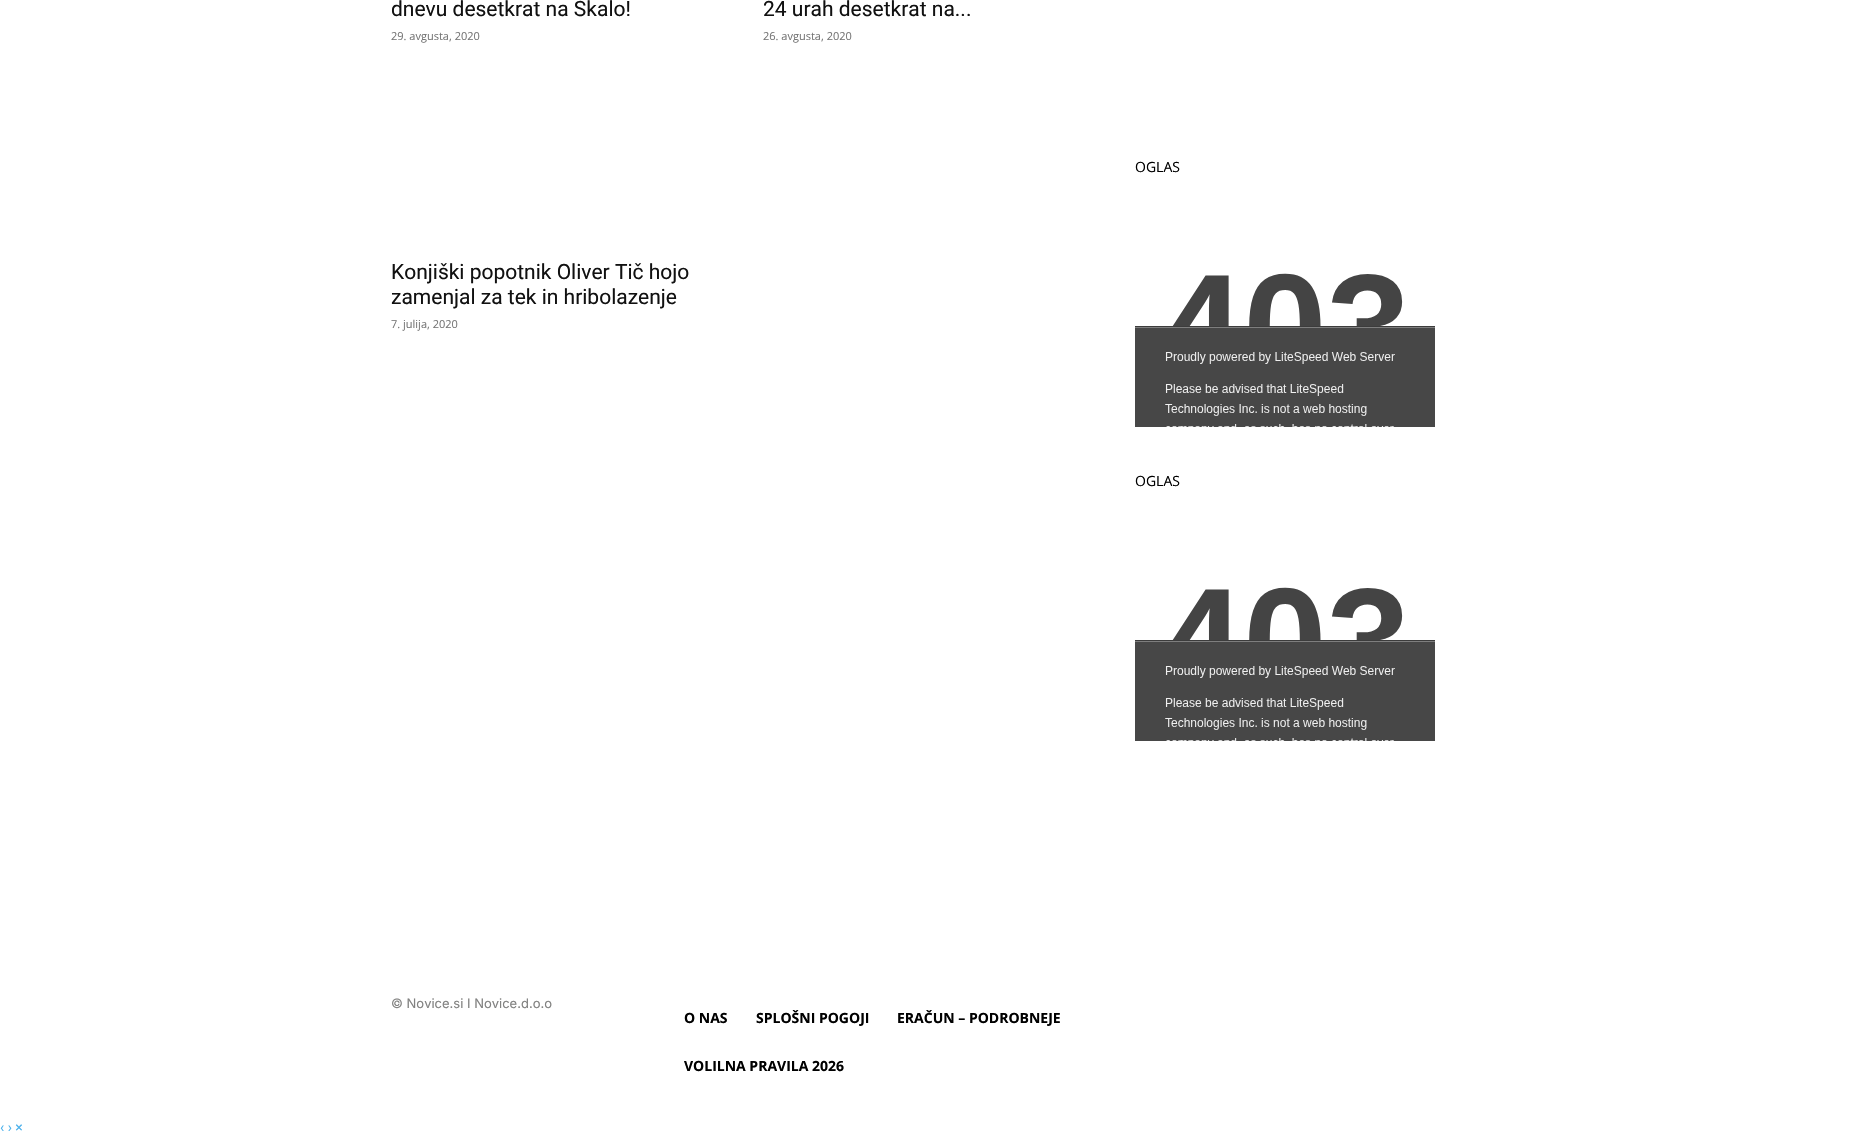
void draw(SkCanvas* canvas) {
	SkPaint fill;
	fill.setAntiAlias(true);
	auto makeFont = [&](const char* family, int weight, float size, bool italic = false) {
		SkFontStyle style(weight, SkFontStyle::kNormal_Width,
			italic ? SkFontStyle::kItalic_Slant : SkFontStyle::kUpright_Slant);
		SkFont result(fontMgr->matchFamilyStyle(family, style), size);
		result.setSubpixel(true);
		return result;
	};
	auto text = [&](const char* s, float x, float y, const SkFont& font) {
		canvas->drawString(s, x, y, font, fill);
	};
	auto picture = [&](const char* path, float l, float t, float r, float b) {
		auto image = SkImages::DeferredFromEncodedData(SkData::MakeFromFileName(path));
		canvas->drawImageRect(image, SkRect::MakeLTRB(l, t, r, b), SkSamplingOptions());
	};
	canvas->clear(0xFFFFFFFF);
	picture("image0.png", 1135, 273, 1435, 427);
	picture("image0.png", 1135, 587, 1435, 741);
	auto font1 = makeFont("Roboto", 400, 21);
	fill.setColor(0xFF111111);
	text("dnevu desetkrat na Skalo!", 391, 16, font1);
	auto font2 = makeFont("Open Sans", 400, 11);
	fill.setColor(0xFF767676);
	text("29. avgusta, 2020", 391, 40, font2);
	fill.setColor(0xFF111111);
	text("24 urah desetkrat na...", 763, 16, font1);
	fill.setColor(0xFF767676);
	text("26. avgusta, 2020", 763, 40, font2);
	fill.setColor(0xFF111111);
	text("Konjiški popotnik Oliver Tič hojo", 391, 279, font1);
	text("zamenjal za tek in hribolazenje", 391, 304, font1);
	fill.setColor(0xFF767676);
	text("7. julija, 2020", 391, 328, font2);
	auto font3 = makeFont("Open Sans", 400, 14);
	fill.setColor(0xFF000000);
	text("OGLAS", 1135, 172, font3);
	text("OGLAS", 1135, 486, font3);
	auto font4 = makeFont("Inter", 400, 13);
	fill.setColor(0xFF828281);
	text("© Novice.si I Novice.d.o.o", 391, 1008, font4);
	auto font5 = makeFont("Open Sans", 700, 14);
	fill.setColor(0xFF000000);
	text("O NAS", 684, 1023, font5);
	text("SPLOŠNI POGOJI", 756, 1023, font5);
	text("ERAČUN – PODROBNEJE", 897, 1023, font5);
	text("VOLILNA PRAVILA 2026", 684, 1071, font5);
	auto font6 = makeFont("Roboto", 400, 14);
	fill.setColor(0xFF4DB2EC);
	text("‹ › ×", 0, 1132, font6);
}
